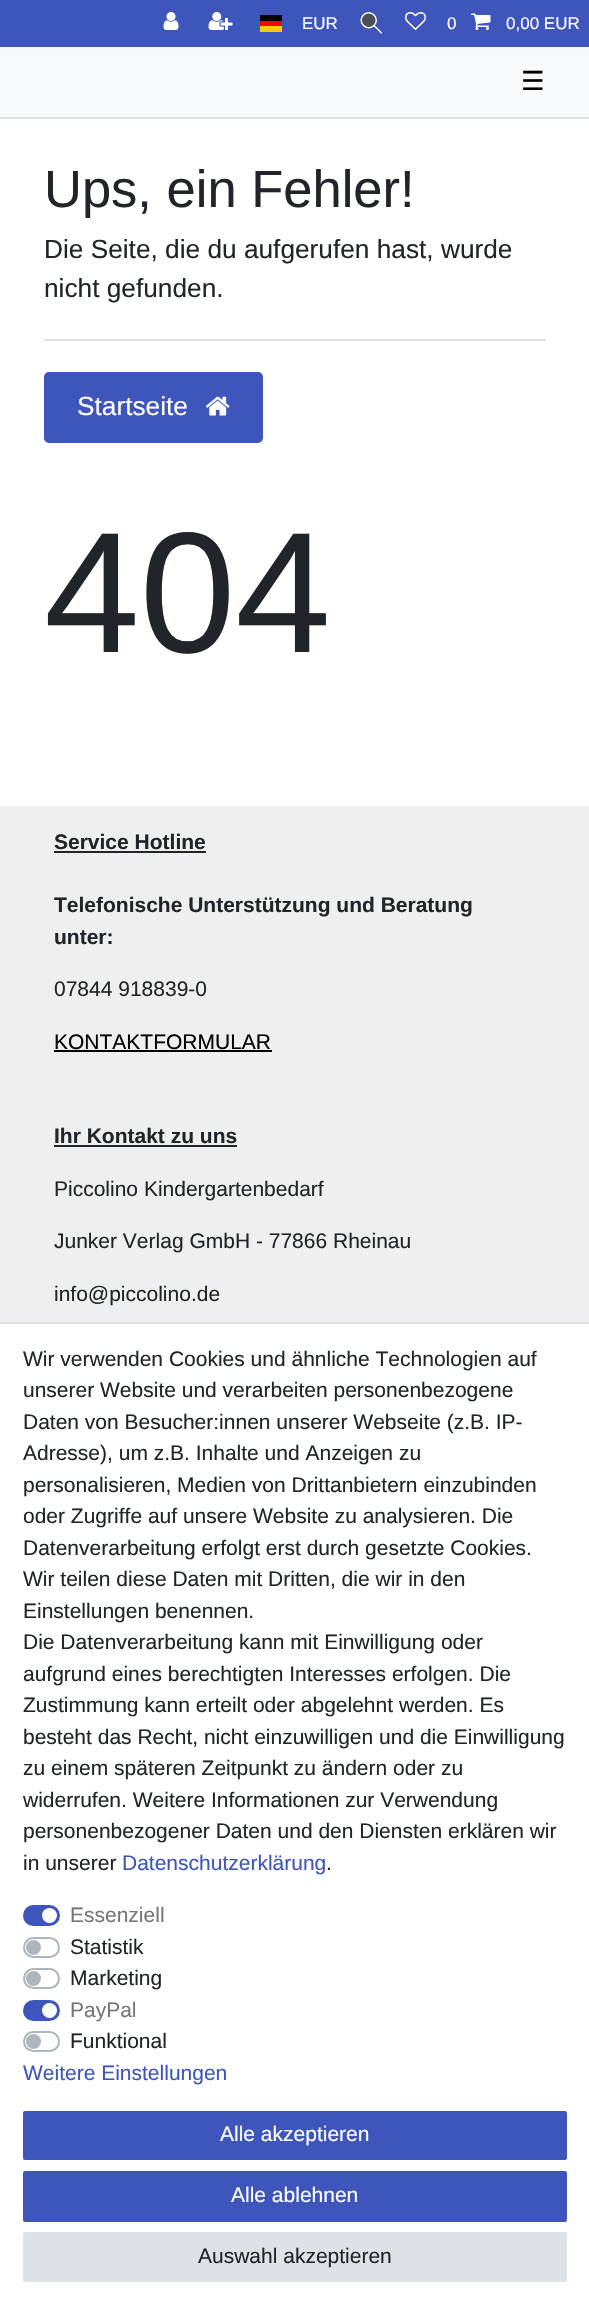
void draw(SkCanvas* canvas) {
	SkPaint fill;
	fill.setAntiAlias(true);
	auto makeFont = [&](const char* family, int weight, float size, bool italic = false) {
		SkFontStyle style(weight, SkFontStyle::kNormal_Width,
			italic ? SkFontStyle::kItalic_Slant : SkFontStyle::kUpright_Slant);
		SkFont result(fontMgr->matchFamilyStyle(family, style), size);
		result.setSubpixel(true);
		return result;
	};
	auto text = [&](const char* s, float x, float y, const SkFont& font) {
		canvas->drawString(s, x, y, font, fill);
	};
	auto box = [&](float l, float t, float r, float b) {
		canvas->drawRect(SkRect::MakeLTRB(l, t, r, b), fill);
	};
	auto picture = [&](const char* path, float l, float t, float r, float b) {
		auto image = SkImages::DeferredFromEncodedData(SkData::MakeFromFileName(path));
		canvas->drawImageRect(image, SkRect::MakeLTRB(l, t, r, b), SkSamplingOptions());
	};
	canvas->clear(0xFFFFFFFF);
	fill.setColor(0xFF3E55BC);
	box(0, 0, 589, 47);
	picture("image0.png", 163, 12, 179, 30);
	picture("image1.png", 208, 12, 233, 30);
	fill.setColor(0xFFFFCC00);
	box(260, 26, 282, 32);
	fill.setColor(0xFF000000);
	box(260, 15, 282, 21);
	fill.setColor(0xFFFF0000);
	box(260, 21, 282, 26);
	fill.setColor(0xFFFFFFFF);
	canvas->drawPath(SkPathBuilder().moveTo(381, 33.5f).lineTo(366, 18.5f).lineTo(366, 18).cubicTo(366, 17.5f, 366.5f, 17.5f, 367, 17.5f).lineTo(382, 32.5f).cubicTo(382.5f, 33.5f, 381.5f, 34, 381, 33.5f).close().detach(), fill);
	fill.setColor(0xFF495057);
	canvas->drawPath(SkPathBuilder().moveTo(363, 26).cubicTo(355, 18.5f, 367, 7, 374.5f, 14.5f).cubicTo(382, 22, 370.5f, 34, 363, 26).close().detach(), fill);
	fill.setStyle(SkPaint::kStroke_Style);
	fill.setStrokeWidth(1.5f);
	fill.setColor(0xFFFFFFFF);
	canvas->drawPath(SkPathBuilder().moveTo(363.5f, 25.5f).cubicTo(356.5f, 18.5f, 367, 8, 374, 15).cubicTo(381, 22, 370.5f, 32.5f, 363.5f, 25.5f).close().detach(), fill);
	picture("image2.png", 405, 12, 426, 30);
	picture("image3.png", 471, 13, 491, 30);
	fill.setStyle(SkPaint::kFill_Style);
	fill.setColor(0xFFF8F9FA);
	box(0, 47, 589, 117);
	fill.setColor(0xFFDEE2E6);
	box(0, 117, 589, 119);
	box(44, 339, 546, 341);
	fill.setColor(0xFF3E55BC);
	canvas->drawRoundRect(SkRect::MakeLTRB(45, 373, 262, 442), 4, 4, fill);
	fill.setStyle(SkPaint::kStroke_Style);
	fill.setStrokeWidth(2);
	canvas->drawRoundRect(SkRect::MakeLTRB(45, 373, 262, 442), 4, 4, fill);
	picture("image4.png", 205, 396, 230, 416);
	fill.setStyle(SkPaint::kFill_Style);
	fill.setColor(0xFFEFEFEF);
	box(0, 806, 589, 1322);
	fill.setColor(0xFF212529);
	box(54, 851, 206, 853);
	fill.setColor(0xFF000000);
	box(54, 1050, 272, 1052);
	fill.setColor(0xFF212529);
	box(54, 1145, 237, 1147);
	fill.setColor(0xFFDEE2E6);
	box(0, 1322, 589, 1324);
	fill.setColor(0xFF3E55BC);
	canvas->drawRoundRect(SkRect::MakeLTRB(24, 1906, 59, 1925), 9.5f, 9.5f, fill);
	fill.setStyle(SkPaint::kStroke_Style);
	canvas->drawRoundRect(SkRect::MakeLTRB(24, 1906, 59, 1925), 9.5f, 9.5f, fill);
	fill.setStyle(SkPaint::kFill_Style);
	fill.setColor(0xFFFFFFFF);
	canvas->drawCircle(49.5f, 1915.5f, 7.5f, fill);
	fill.setStyle(SkPaint::kStroke_Style);
	fill.setColor(0xFFADB5BD);
	canvas->drawRoundRect(SkRect::MakeLTRB(24, 1938, 59, 1957), 9.5f, 9.5f, fill);
	fill.setStyle(SkPaint::kFill_Style);
	canvas->drawCircle(33.5f, 1947.5f, 7.5f, fill);
	fill.setStyle(SkPaint::kStroke_Style);
	canvas->drawRoundRect(SkRect::MakeLTRB(24, 1969, 59, 1988), 9.5f, 9.5f, fill);
	fill.setStyle(SkPaint::kFill_Style);
	canvas->drawCircle(33.5f, 1978.5f, 7.5f, fill);
	fill.setColor(0xFF3E55BC);
	canvas->drawRoundRect(SkRect::MakeLTRB(24, 2001, 59, 2020), 9.5f, 9.5f, fill);
	fill.setStyle(SkPaint::kStroke_Style);
	canvas->drawRoundRect(SkRect::MakeLTRB(24, 2001, 59, 2020), 9.5f, 9.5f, fill);
	fill.setStyle(SkPaint::kFill_Style);
	fill.setColor(0xFFFFFFFF);
	canvas->drawCircle(49.5f, 2010.5f, 7.5f, fill);
	fill.setStyle(SkPaint::kStroke_Style);
	fill.setColor(0xFFADB5BD);
	canvas->drawRoundRect(SkRect::MakeLTRB(24, 2032, 59, 2051), 9.5f, 9.5f, fill);
	fill.setStyle(SkPaint::kFill_Style);
	canvas->drawCircle(33.5f, 2041.5f, 7.5f, fill);
	fill.setColor(0xFF3E55BC);
	canvas->drawRoundRect(SkRect::MakeLTRB(24, 2112, 566, 2159), 1, 1, fill);
	fill.setStyle(SkPaint::kStroke_Style);
	canvas->drawRoundRect(SkRect::MakeLTRB(24, 2112, 566, 2159), 1, 1, fill);
	fill.setStyle(SkPaint::kFill_Style);
	canvas->drawRoundRect(SkRect::MakeLTRB(24, 2172, 566, 2221), 1, 1, fill);
	fill.setStyle(SkPaint::kStroke_Style);
	canvas->drawRoundRect(SkRect::MakeLTRB(24, 2172, 566, 2221), 1, 1, fill);
	fill.setStyle(SkPaint::kFill_Style);
	fill.setColor(0xFFDEE2E6);
	canvas->drawRoundRect(SkRect::MakeLTRB(24, 2233, 566, 2281), 1, 1, fill);
	fill.setStyle(SkPaint::kStroke_Style);
	canvas->drawRoundRect(SkRect::MakeLTRB(24, 2233, 566, 2281), 1, 1, fill);
	auto font1 = makeFont("Liberation Sans", 400, 17);
	fill.setStyle(SkPaint::kFill_Style);
	fill.setColor(0xFFFFFFFF);
	text("EUR", 302, 29, font1);
	text("0", 447, 29, font1);
	text("0,00 EUR", 506, 29, font1);
	auto font2 = makeFont("DejaVu Sans", 400, 26.25f);
	fill.setColor(0xFF000000);
	text("☰", 521, 90, font2);
	auto font3 = makeFont("Liberation Sans", 400, 52.5f);
	fill.setColor(0xFF212529);
	text("Ups, ein Fehler!", 44, 207, font3);
	auto font4 = makeFont("Liberation Sans", 400, 26.25f);
	text("Die Seite, die du aufgerufen hast, wurde", 44, 258, font4);
	text("nicht gefunden.", 44, 297, font4);
	fill.setColor(0xFFFFFFFF);
	text("Startseite", 77, 415, font4);
	auto font5 = makeFont("Liberation Sans", 400, 172);
	fill.setColor(0xFF212529);
	text("404", 44, 652, font5);
	auto font6 = makeFont("Liberation Sans", 700, 21);
	text("Service Hotline", 54, 849, font6);
	text("Telefonische Unterstützung und Beratung", 54, 912, font6);
	text("unter:", 54, 944, font6);
	auto font7 = makeFont("Liberation Sans", 400, 21);
	text("07844 918839-0", 54, 996, font7);
	fill.setColor(0xFF000000);
	text("KONTAKTFORMULAR", 54, 1049, font7);
	fill.setColor(0xFF212529);
	text("Ihr Kontakt zu uns", 54, 1143, font6);
	text("Piccolino Kindergartenbedarf", 54, 1196, font7);
	text("Junker Verlag GmbH - 77866 Rheinau", 54, 1248, font7);
	text("info@piccolino.de", 54, 1301, font7);
	text("Wir verwenden Cookies und ähnliche Technologien auf", 23, 1366, font7);
	text("unserer Website und verarbeiten personenbezogene", 23, 1397, font7);
	text("Daten von Besucher:innen unserer Webseite (z.B. IP-", 23, 1429, font7);
	text("Adresse), um z.B. Inhalte und Anzeigen zu", 23, 1460, font7);
	text("personalisieren, Medien von Drittanbietern einzubinden", 23, 1492, font7);
	text("oder Zugriffe auf unsere Website zu analysieren. Die", 23, 1523, font7);
	text("Datenverarbeitung erfolgt erst durch gesetzte Cookies.", 23, 1555, font7);
	text("Wir teilen diese Daten mit Dritten, die wir in den", 23, 1586, font7);
	text("Einstellungen benennen.", 23, 1618, font7);
	text("Die Datenverarbeitung kann mit Einwilligung oder", 23, 1649, font7);
	text("aufgrund eines berechtigten Interesses erfolgen. Die", 23, 1681, font7);
	text("Zustimmung kann erteilt oder abgelehnt werden. Es", 23, 1712, font7);
	text("besteht das Recht, nicht einzuwilligen und die Einwilligung", 23, 1744, font7);
	text("zu einem späteren Zeitpunkt zu ändern oder zu", 23, 1775, font7);
	text("widerrufen. Weitere Informationen zur Verwendung", 23, 1807, font7);
	text("personenbezogener Daten und den Diensten erklären wir", 23, 1838, font7);
	text("in unserer", 23, 1870, font7);
	fill.setColor(0xFF3E55BC);
	text("Datenschutzerklärung", 122, 1870, font7);
	fill.setColor(0xFF212529);
	text(".", 326, 1870, font7);
	fill.setColor(0xFF767676);
	text("Essenziell", 70, 1922, font7);
	fill.setColor(0xFF212529);
	text("Statistik", 70, 1954, font7);
	text("Marketing", 70, 1985, font7);
	fill.setColor(0xFF767676);
	text("PayPal", 70, 2017, font7);
	fill.setColor(0xFF212529);
	text("Funktional", 70, 2048, font7);
	fill.setColor(0xFF3E55BC);
	text("Weitere Einstellungen", 23, 2080, font7);
	fill.setColor(0xFFFFFFFF);
	text("Alle akzeptieren", 220, 2141, font7);
	text("Alle ablehnen", 231, 2202, font7);
	fill.setColor(0xFF212529);
	text("Auswahl akzeptieren", 198, 2263, font7);
}
